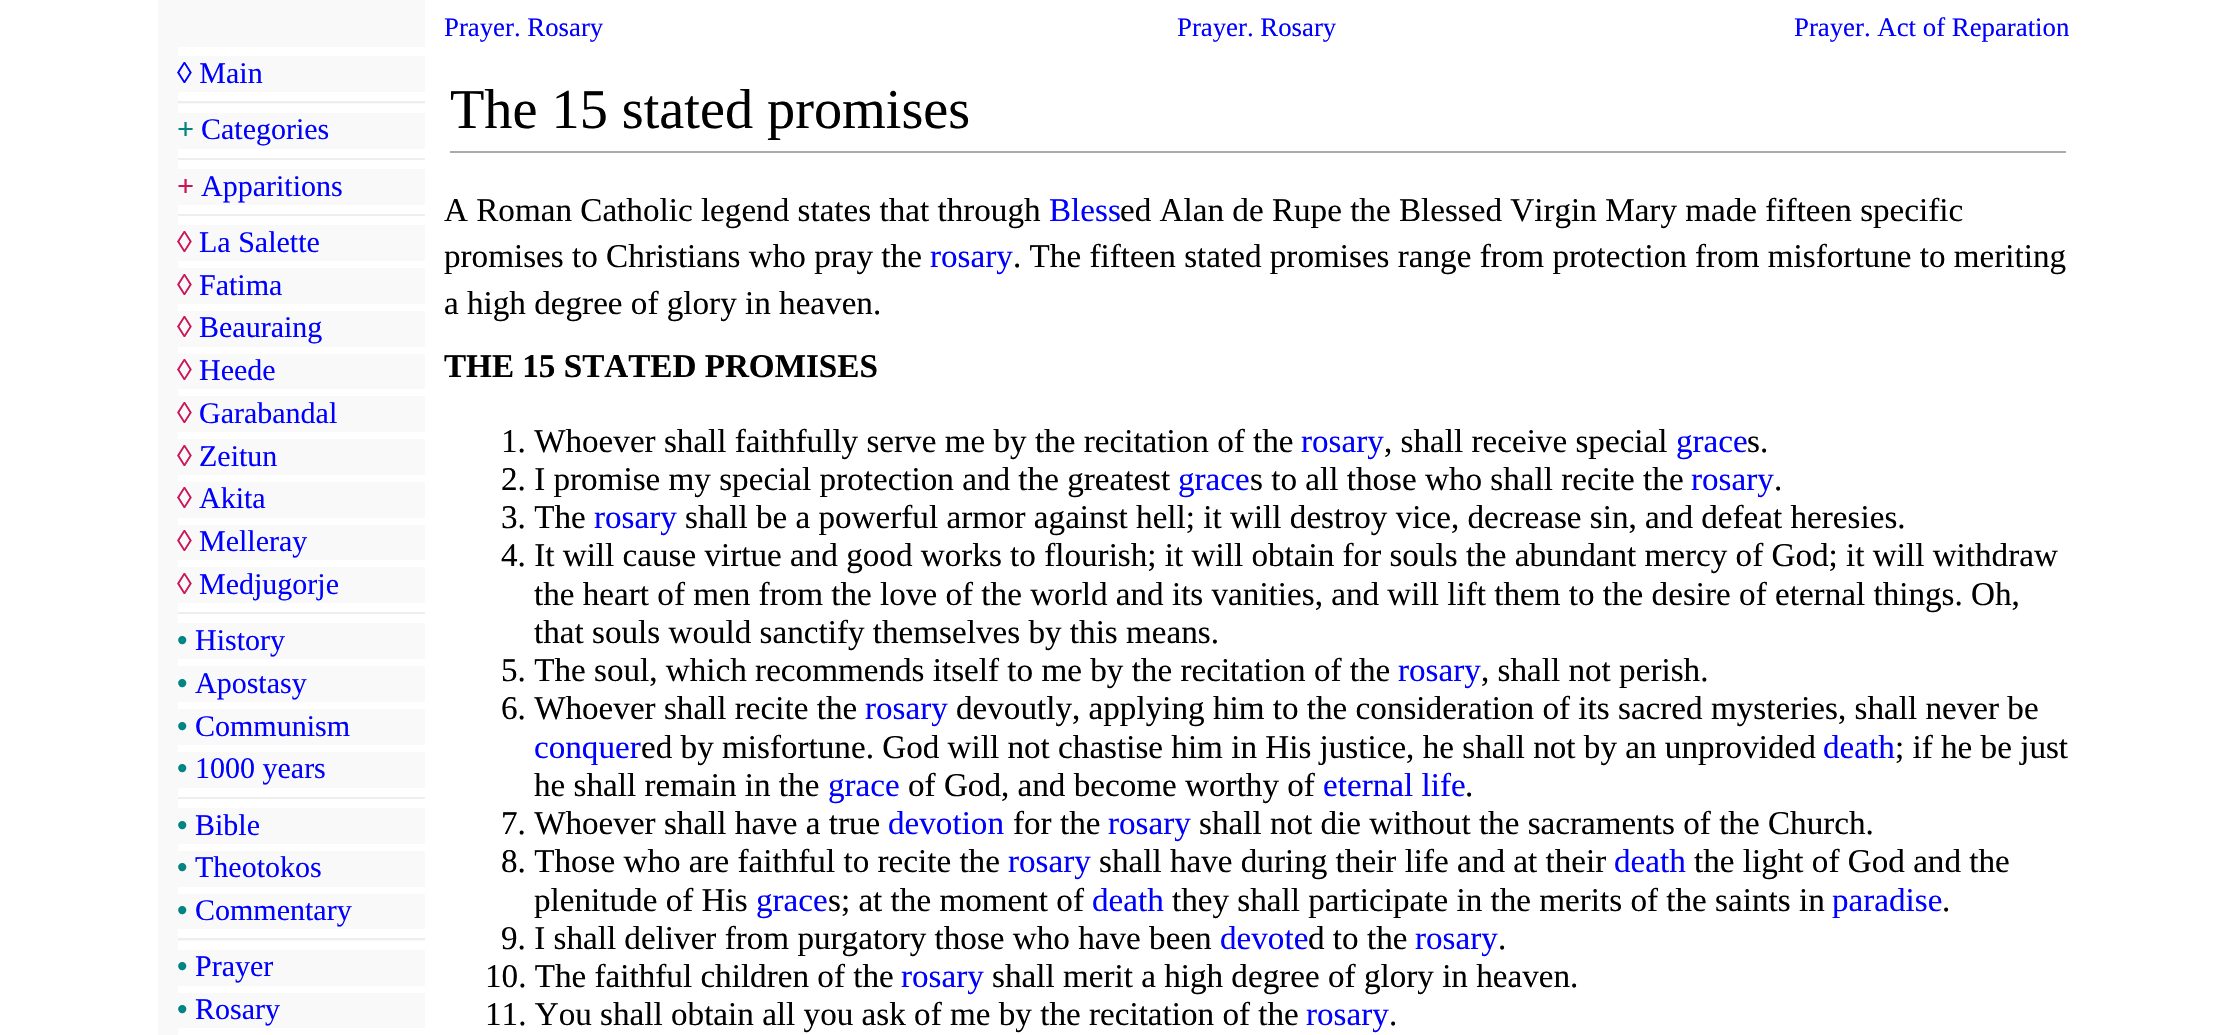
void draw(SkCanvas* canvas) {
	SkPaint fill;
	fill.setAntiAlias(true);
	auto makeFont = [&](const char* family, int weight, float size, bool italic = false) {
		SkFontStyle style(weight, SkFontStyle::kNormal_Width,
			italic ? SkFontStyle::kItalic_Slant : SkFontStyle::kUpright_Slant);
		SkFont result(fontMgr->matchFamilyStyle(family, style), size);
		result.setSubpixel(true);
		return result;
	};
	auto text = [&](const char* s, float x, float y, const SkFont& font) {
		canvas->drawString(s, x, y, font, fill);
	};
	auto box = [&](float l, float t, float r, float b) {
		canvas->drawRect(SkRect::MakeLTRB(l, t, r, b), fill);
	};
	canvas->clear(0xFFFFFFFF);
	fill.setColor(0xFFF9F9F9);
	box(158, 0, 425, 11);
	box(158, 11, 178, 1035);
	box(178, 11, 425, 1028);
	fill.setColor(0xFFFFFFFF);
	box(178, 47, 425, 56);
	box(178, 92, 425, 101);
	fill.setColor(0xFFEEEEEE);
	box(178, 101, 425, 103);
	fill.setColor(0xFFFFFFFF);
	box(178, 104, 425, 113);
	box(178, 149, 425, 158);
	fill.setColor(0xFFEEEEEE);
	box(178, 158, 425, 160);
	fill.setColor(0xFFFFFFFF);
	box(178, 160, 425, 169);
	box(178, 205, 425, 214);
	fill.setColor(0xFFEEEEEE);
	box(178, 214, 425, 216);
	fill.setColor(0xFFFFFFFF);
	box(178, 216, 425, 225);
	box(178, 261, 425, 268);
	box(178, 304, 425, 311);
	box(178, 347, 425, 354);
	box(178, 389, 425, 396);
	box(178, 432, 425, 439);
	box(178, 475, 425, 482);
	box(178, 518, 425, 525);
	box(178, 560, 425, 567);
	box(178, 603, 425, 612);
	fill.setColor(0xFFEEEEEE);
	box(178, 612, 425, 614);
	fill.setColor(0xFFFFFFFF);
	box(178, 614, 425, 623);
	box(178, 659, 425, 666);
	box(178, 702, 425, 709);
	box(178, 745, 425, 752);
	box(178, 788, 425, 797);
	fill.setColor(0xFFEEEEEE);
	box(178, 797, 425, 799);
	fill.setColor(0xFFFFFFFF);
	box(178, 799, 425, 808);
	box(178, 844, 425, 851);
	box(178, 887, 425, 894);
	box(178, 929, 425, 938);
	fill.setColor(0xFFEEEEEE);
	box(178, 938, 425, 940);
	fill.setColor(0xFFFFFFFF);
	box(178, 941, 425, 950);
	box(178, 986, 425, 993);
	fill.setColor(0xFFAAAAAA);
	box(450, 151, 2066, 153);
	auto font1 = makeFont("Liberation Serif", 400, 30);
	fill.setColor(0xFF0000FF);
	text("◊ Main", 177, 83, font1);
	auto font2 = makeFont("Liberation Serif", 700, 30);
	fill.setColor(0xFF028482);
	text("+", 177, 139, font2);
	fill.setColor(0xFF0000FF);
	text("Categories", 201, 139, font1);
	fill.setColor(0xFFCC1559);
	text("+", 177, 196, font2);
	fill.setColor(0xFF0000FF);
	text("Apparitions", 201, 196, font1);
	fill.setColor(0xFFCC1559);
	text("◊", 177, 252, font1);
	fill.setColor(0xFF0000FF);
	text("La Salette", 199, 252, font1);
	fill.setColor(0xFFCC1559);
	text("◊", 177, 295, font1);
	fill.setColor(0xFF0000FF);
	text("Fatima", 199, 295, font1);
	fill.setColor(0xFFCC1559);
	text("◊", 177, 337, font1);
	fill.setColor(0xFF0000FF);
	text("Beauraing", 199, 337, font1);
	fill.setColor(0xFFCC1559);
	text("◊", 177, 380, font1);
	fill.setColor(0xFF0000FF);
	text("Heede", 199, 380, font1);
	fill.setColor(0xFFCC1559);
	text("◊", 177, 423, font1);
	fill.setColor(0xFF0000FF);
	text("Garabandal", 199, 423, font1);
	fill.setColor(0xFFCC1559);
	text("◊", 177, 466, font1);
	fill.setColor(0xFF0000FF);
	text("Zeitun", 199, 466, font1);
	fill.setColor(0xFFCC1559);
	text("◊", 177, 508, font1);
	fill.setColor(0xFF0000FF);
	text("Akita", 199, 508, font1);
	fill.setColor(0xFFCC1559);
	text("◊", 177, 551, font1);
	fill.setColor(0xFF0000FF);
	text("Melleray", 199, 551, font1);
	fill.setColor(0xFFCC1559);
	text("◊", 177, 594, font1);
	fill.setColor(0xFF0000FF);
	text("Medjugorje", 199, 594, font1);
	fill.setColor(0xFF028482);
	text("•", 177, 650, font2);
	fill.setColor(0xFF0000FF);
	text("History", 195, 650, font1);
	fill.setColor(0xFF028482);
	text("•", 177, 693, font2);
	fill.setColor(0xFF0000FF);
	text("Apostasy", 195, 693, font1);
	fill.setColor(0xFF028482);
	text("•", 177, 736, font2);
	fill.setColor(0xFF0000FF);
	text("Communism", 195, 736, font1);
	fill.setColor(0xFF028482);
	text("•", 177, 778, font2);
	fill.setColor(0xFF0000FF);
	text("1000 years", 195, 778, font1);
	fill.setColor(0xFF028482);
	text("•", 177, 835, font2);
	fill.setColor(0xFF0000FF);
	text("Bible", 195, 835, font1);
	fill.setColor(0xFF028482);
	text("•", 177, 877, font2);
	fill.setColor(0xFF0000FF);
	text("Theotokos", 195, 877, font1);
	fill.setColor(0xFF028482);
	text("•", 177, 920, font2);
	fill.setColor(0xFF0000FF);
	text("Commentary", 195, 920, font1);
	fill.setColor(0xFF028482);
	text("•", 177, 976, font2);
	fill.setColor(0xFF0000FF);
	text("Prayer", 195, 976, font1);
	fill.setColor(0xFF028482);
	text("•", 177, 1019, font2);
	fill.setColor(0xFF0000FF);
	text("Rosary", 195, 1019, font1);
	auto font3 = makeFont("Liberation Serif", 400, 26.8f);
	text("Prayer. Rosary", 444, 36, font3);
	text("Prayer. Rosary", 1177, 36, font3);
	text("Prayer. Act of Reparation", 1794, 36, font3);
	auto font4 = makeFont("Liberation Serif", 400, 56.25f);
	fill.setColor(0xFF000000);
	text("The 15 stated promises", 450, 128, font4);
	auto font5 = makeFont("Liberation Serif", 400, 33.15f);
	text("A Roman Catholic legend states that through", 444, 221, font5);
	fill.setColor(0xFF0000FF);
	text("Bless", 1049, 221, font5);
	fill.setColor(0xFF000000);
	text("ed Alan de Rupe the Blessed Virgin Mary made fifteen specific", 1120, 221, font5);
	text("promises to Christians who pray the", 444, 267, font5);
	fill.setColor(0xFF0000FF);
	text("rosary", 930, 267, font5);
	fill.setColor(0xFF000000);
	text(". The fifteen stated promises range from protection from misfortune to meriting", 1013, 267, font5);
	text("a high degree of glory in heaven.", 444, 314, font5);
	auto font6 = makeFont("Liberation Serif", 700, 33.15f);
	text("THE 15 STATED PROMISES", 444, 377, font6);
	text("1. Whoever shall faithfully serve me by the recitation of the", 501, 452, font5);
	fill.setColor(0xFF0000FF);
	text("rosary", 1301, 452, font5);
	fill.setColor(0xFF000000);
	text(", shall receive special", 1384, 452, font5);
	fill.setColor(0xFF0000FF);
	text("grace", 1676, 452, font5);
	fill.setColor(0xFF000000);
	text("s.", 1747, 452, font5);
	text("2. I promise my special protection and the greatest", 501, 490, font5);
	fill.setColor(0xFF0000FF);
	text("grace", 1178, 490, font5);
	fill.setColor(0xFF000000);
	text("s to all those who shall recite the", 1250, 490, font5);
	fill.setColor(0xFF0000FF);
	text("rosary", 1691, 490, font5);
	fill.setColor(0xFF000000);
	text(".", 1774, 490, font5);
	text("3. The", 501, 528, font5);
	fill.setColor(0xFF0000FF);
	text("rosary", 594, 528, font5);
	fill.setColor(0xFF000000);
	text("shall be a powerful armor against hell; it will destroy vice, decrease sin, and defeat heresies.", 685, 528, font5);
	text("4. It will cause virtue and good works to flourish; it will obtain for souls the abundant mercy of God; it will withdraw", 501, 566, font5);
	text("the heart of men from the love of the world and its vanities, and will lift them to the desire of eternal things. Oh,", 534, 605, font5);
	text("that souls would sanctify themselves by this means.", 534, 643, font5);
	text("5. The soul, which recommends itself to me by the recitation of the", 501, 681, font5);
	fill.setColor(0xFF0000FF);
	text("rosary", 1398, 681, font5);
	fill.setColor(0xFF000000);
	text(", shall not perish.", 1481, 681, font5);
	text("6. Whoever shall recite the", 501, 719, font5);
	fill.setColor(0xFF0000FF);
	text("rosary", 865, 719, font5);
	fill.setColor(0xFF000000);
	text("devoutly, applying him to the consideration of its sacred mysteries, shall never be", 956, 719, font5);
	fill.setColor(0xFF0000FF);
	text("conquer", 534, 758, font5);
	fill.setColor(0xFF000000);
	text("ed by misfortune. God will not chastise him in His justice, he shall not by an unprovided", 641, 758, font5);
	fill.setColor(0xFF0000FF);
	text("death", 1823, 758, font5);
	fill.setColor(0xFF000000);
	text("; if he be just", 1895, 758, font5);
	text("he shall remain in the", 534, 796, font5);
	fill.setColor(0xFF0000FF);
	text("grace", 828, 796, font5);
	fill.setColor(0xFF000000);
	text("of God, and become worthy of", 908, 796, font5);
	fill.setColor(0xFF0000FF);
	text("eternal life", 1323, 796, font5);
	fill.setColor(0xFF000000);
	text(".", 1465, 796, font5);
	text("7. Whoever shall have a true", 501, 834, font5);
	fill.setColor(0xFF0000FF);
	text("devotion", 888, 834, font5);
	fill.setColor(0xFF000000);
	text("for the", 1013, 834, font5);
	fill.setColor(0xFF0000FF);
	text("rosary", 1108, 834, font5);
	fill.setColor(0xFF000000);
	text("shall not die without the sacraments of the Church.", 1199, 834, font5);
	text("8. Those who are faithful to recite the", 501, 872, font5);
	fill.setColor(0xFF0000FF);
	text("rosary", 1008, 872, font5);
	fill.setColor(0xFF000000);
	text("shall have during their life and at their", 1099, 872, font5);
	fill.setColor(0xFF0000FF);
	text("death", 1614, 872, font5);
	fill.setColor(0xFF000000);
	text("the light of God and the", 1694, 872, font5);
	text("plenitude of His", 534, 911, font5);
	fill.setColor(0xFF0000FF);
	text("grace", 756, 911, font5);
	fill.setColor(0xFF000000);
	text("s; at the moment of", 828, 911, font5);
	fill.setColor(0xFF0000FF);
	text("death", 1092, 911, font5);
	fill.setColor(0xFF000000);
	text("they shall participate in the merits of the saints in", 1172, 911, font5);
	fill.setColor(0xFF0000FF);
	text("paradise", 1832, 911, font5);
	fill.setColor(0xFF000000);
	text(".", 1942, 911, font5);
	text("9. I shall deliver from purgatory those who have been", 501, 949, font5);
	fill.setColor(0xFF0000FF);
	text("devote", 1220, 949, font5);
	fill.setColor(0xFF000000);
	text("d to the", 1308, 949, font5);
	fill.setColor(0xFF0000FF);
	text("rosary", 1415, 949, font5);
	fill.setColor(0xFF000000);
	text(".", 1498, 949, font5);
	text("10. The faithful children of the", 485, 987, font5);
	fill.setColor(0xFF0000FF);
	text("rosary", 901, 987, font5);
	fill.setColor(0xFF000000);
	text("shall merit a high degree of glory in heaven.", 992, 987, font5);
	text("11. You shall obtain all you ask of me by the recitation of the", 485, 1025, font5);
	fill.setColor(0xFF0000FF);
	text("rosary", 1306, 1025, font5);
	fill.setColor(0xFF000000);
	text(".", 1389, 1025, font5);
}
